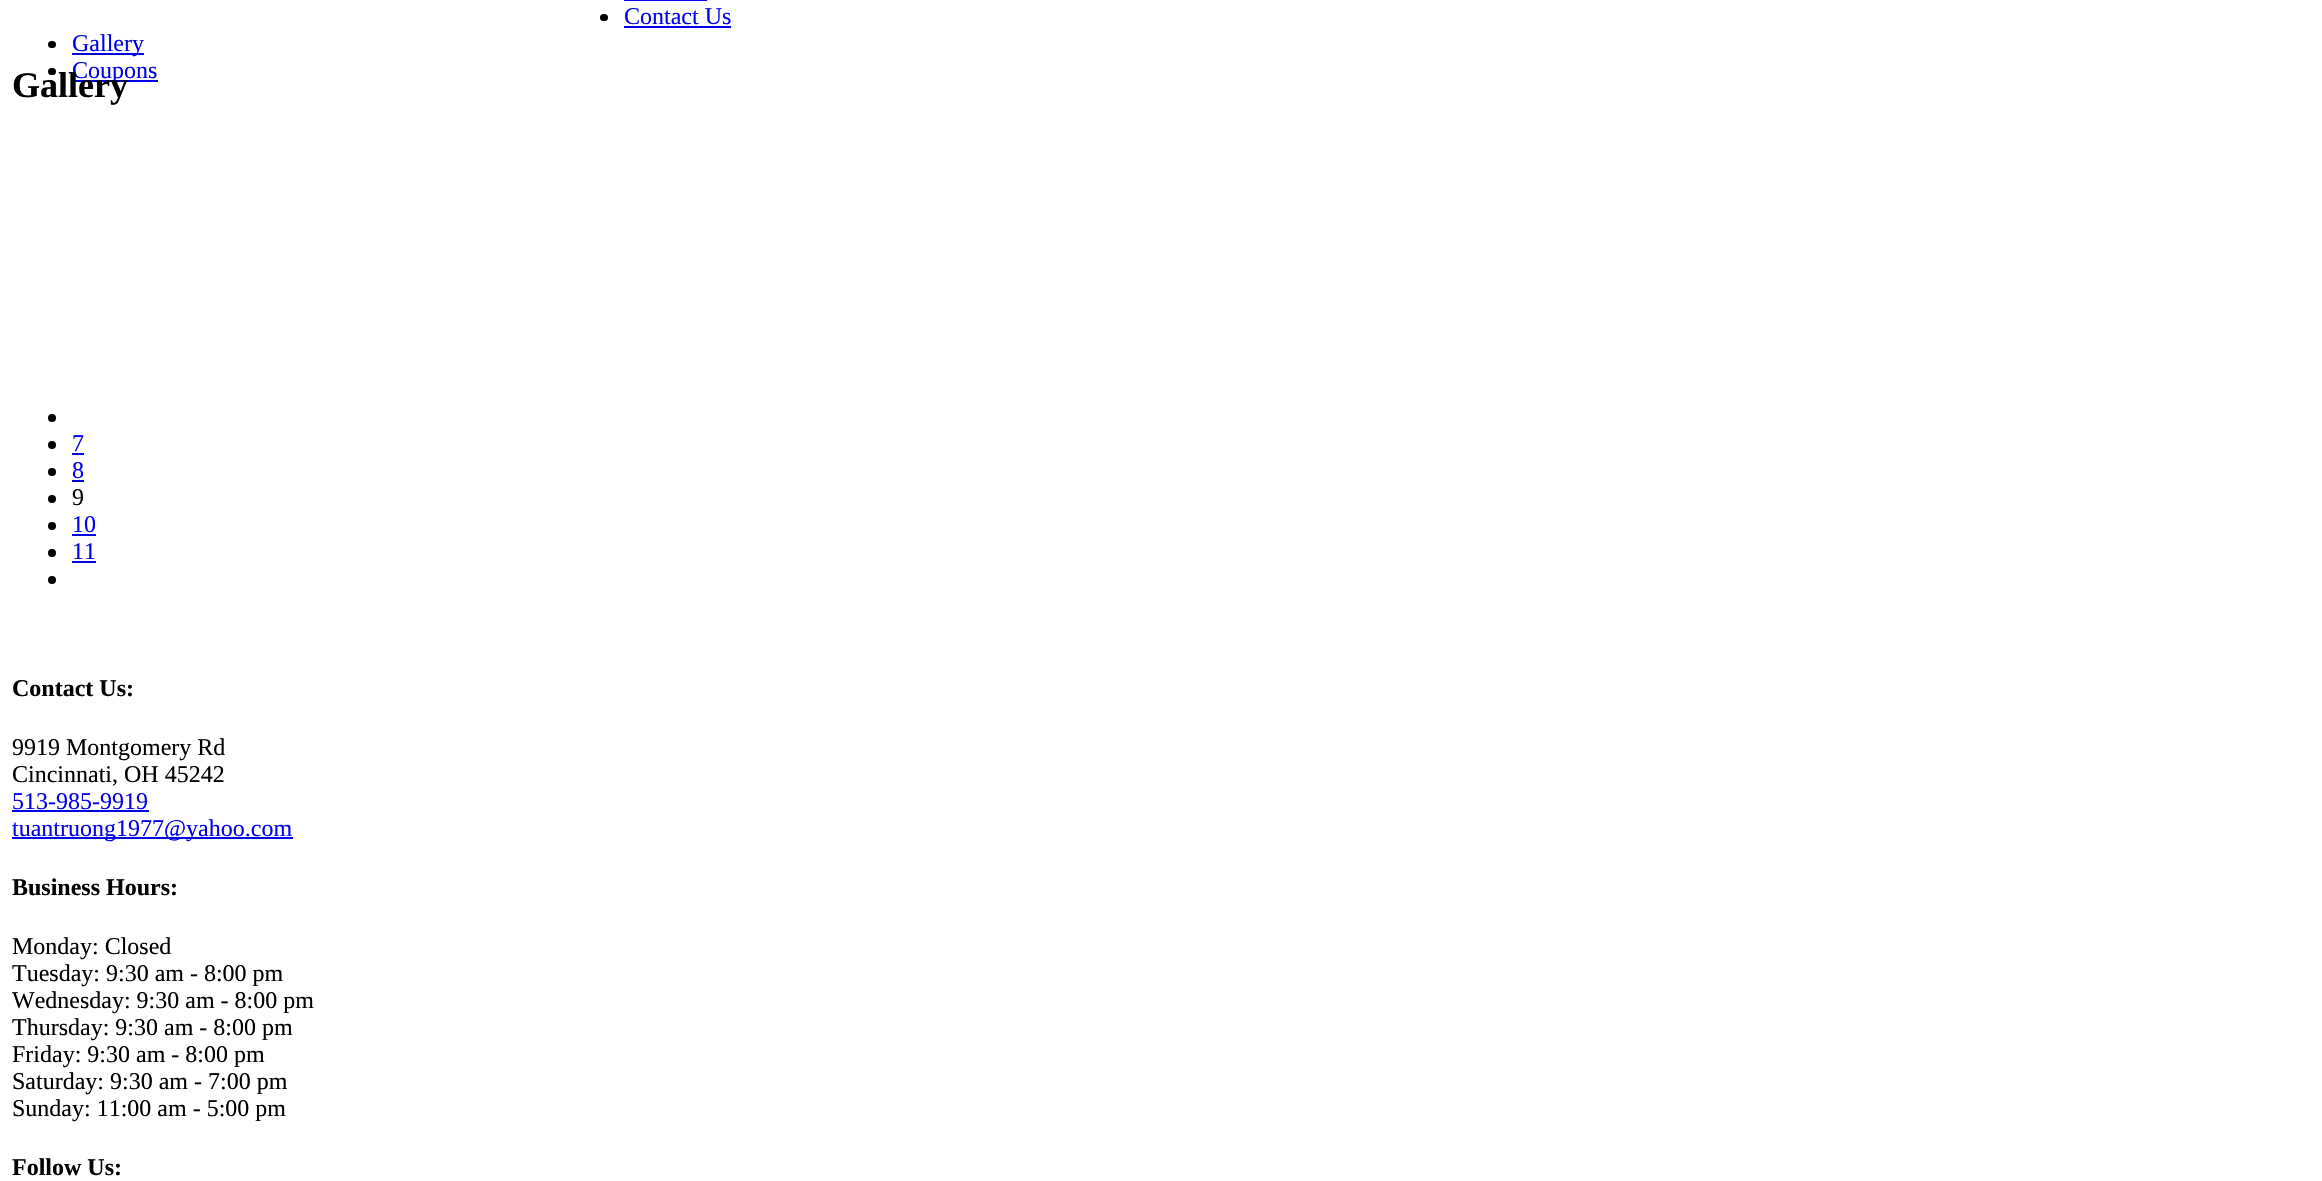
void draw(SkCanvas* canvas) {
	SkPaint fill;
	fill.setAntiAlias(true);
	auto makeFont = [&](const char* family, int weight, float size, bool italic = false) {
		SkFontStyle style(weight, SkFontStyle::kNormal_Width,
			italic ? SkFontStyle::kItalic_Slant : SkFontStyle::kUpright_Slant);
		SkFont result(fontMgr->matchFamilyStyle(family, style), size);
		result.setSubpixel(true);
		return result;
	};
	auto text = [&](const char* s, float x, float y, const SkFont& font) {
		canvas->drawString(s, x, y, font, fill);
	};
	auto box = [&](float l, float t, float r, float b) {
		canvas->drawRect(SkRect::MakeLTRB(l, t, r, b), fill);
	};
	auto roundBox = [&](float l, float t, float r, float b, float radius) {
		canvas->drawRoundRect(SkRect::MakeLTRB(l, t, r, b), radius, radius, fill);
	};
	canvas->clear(0xFFFFFFFF);
	fill.setColor(0xFF0000EE);
	box(624, 0, 707, 1);
	fill.setColor(0xFF000000);
	roundBox(600, 14, 608, 21, 3.5f);
	fill.setColor(0xFF0000EE);
	box(624, 26, 731, 28);
	fill.setColor(0xFF000000);
	roundBox(48, 41, 56, 48, 3.5f);
	fill.setColor(0xFF0000EE);
	box(72, 53, 144, 55);
	fill.setColor(0xFF000000);
	roundBox(48, 68, 56, 75, 3.5f);
	fill.setColor(0xFF0000EE);
	box(72, 80, 158, 82);
	fill.setColor(0xFF000000);
	canvas->drawCircle(52, 418, 4, fill);
	canvas->drawCircle(52, 445, 4, fill);
	fill.setColor(0xFF0000EE);
	box(72, 453, 84, 455);
	fill.setColor(0xFF000000);
	canvas->drawCircle(52, 472, 4, fill);
	fill.setColor(0xFF0000EE);
	box(72, 480, 84, 482);
	fill.setColor(0xFF000000);
	canvas->drawCircle(52, 499, 4, fill);
	canvas->drawCircle(52, 526, 4, fill);
	fill.setColor(0xFF0000EE);
	box(72, 534, 96, 536);
	fill.setColor(0xFF000000);
	canvas->drawCircle(52, 553, 4, fill);
	fill.setColor(0xFF0000EE);
	box(72, 561, 96, 563);
	fill.setColor(0xFF000000);
	canvas->drawCircle(52, 580, 4, fill);
	fill.setColor(0xFF0000EE);
	box(12, 810, 149, 812);
	box(12, 837, 293, 839);
	auto font1 = makeFont("Liberation Serif", 400, 24);
	text("Contact Us", 624, 24, font1);
	text("Gallery", 72, 51, font1);
	text("Coupons", 72, 78, font1);
	auto font2 = makeFont("Liberation Serif", 700, 36);
	fill.setColor(0xFF000000);
	text("Gallery", 12, 97, font2);
	fill.setColor(0xFF0000EE);
	text("7", 72, 451, font1);
	text("8", 72, 478, font1);
	fill.setColor(0xFF000000);
	text("9", 72, 505, font1);
	fill.setColor(0xFF0000EE);
	text("10", 72, 532, font1);
	text("11", 72, 559, font1);
	auto font3 = makeFont("Liberation Serif", 700, 24);
	fill.setColor(0xFF000000);
	text("Contact Us:", 12, 696, font3);
	text("9919 Montgomery Rd", 12, 755, font1);
	text("Cincinnati, OH 45242", 12, 782, font1);
	fill.setColor(0xFF0000EE);
	text("513-985-9919", 12, 809, font1);
	text("tuantruong1977@yahoo.com", 12, 836, font1);
	fill.setColor(0xFF000000);
	text("Business Hours:", 12, 895, font3);
	text("Monday: Closed", 12, 954, font1);
	text("Tuesday: 9:30 am - 8:00 pm", 12, 981, font1);
	text("Wednesday: 9:30 am - 8:00 pm", 12, 1008, font1);
	text("Thursday: 9:30 am - 8:00 pm", 12, 1035, font1);
	text("Friday: 9:30 am - 8:00 pm", 12, 1062, font1);
	text("Saturday: 9:30 am - 7:00 pm", 12, 1089, font1);
	text("Sunday: 11:00 am - 5:00 pm", 12, 1116, font1);
	text("Follow Us:", 12, 1175, font3);
}
